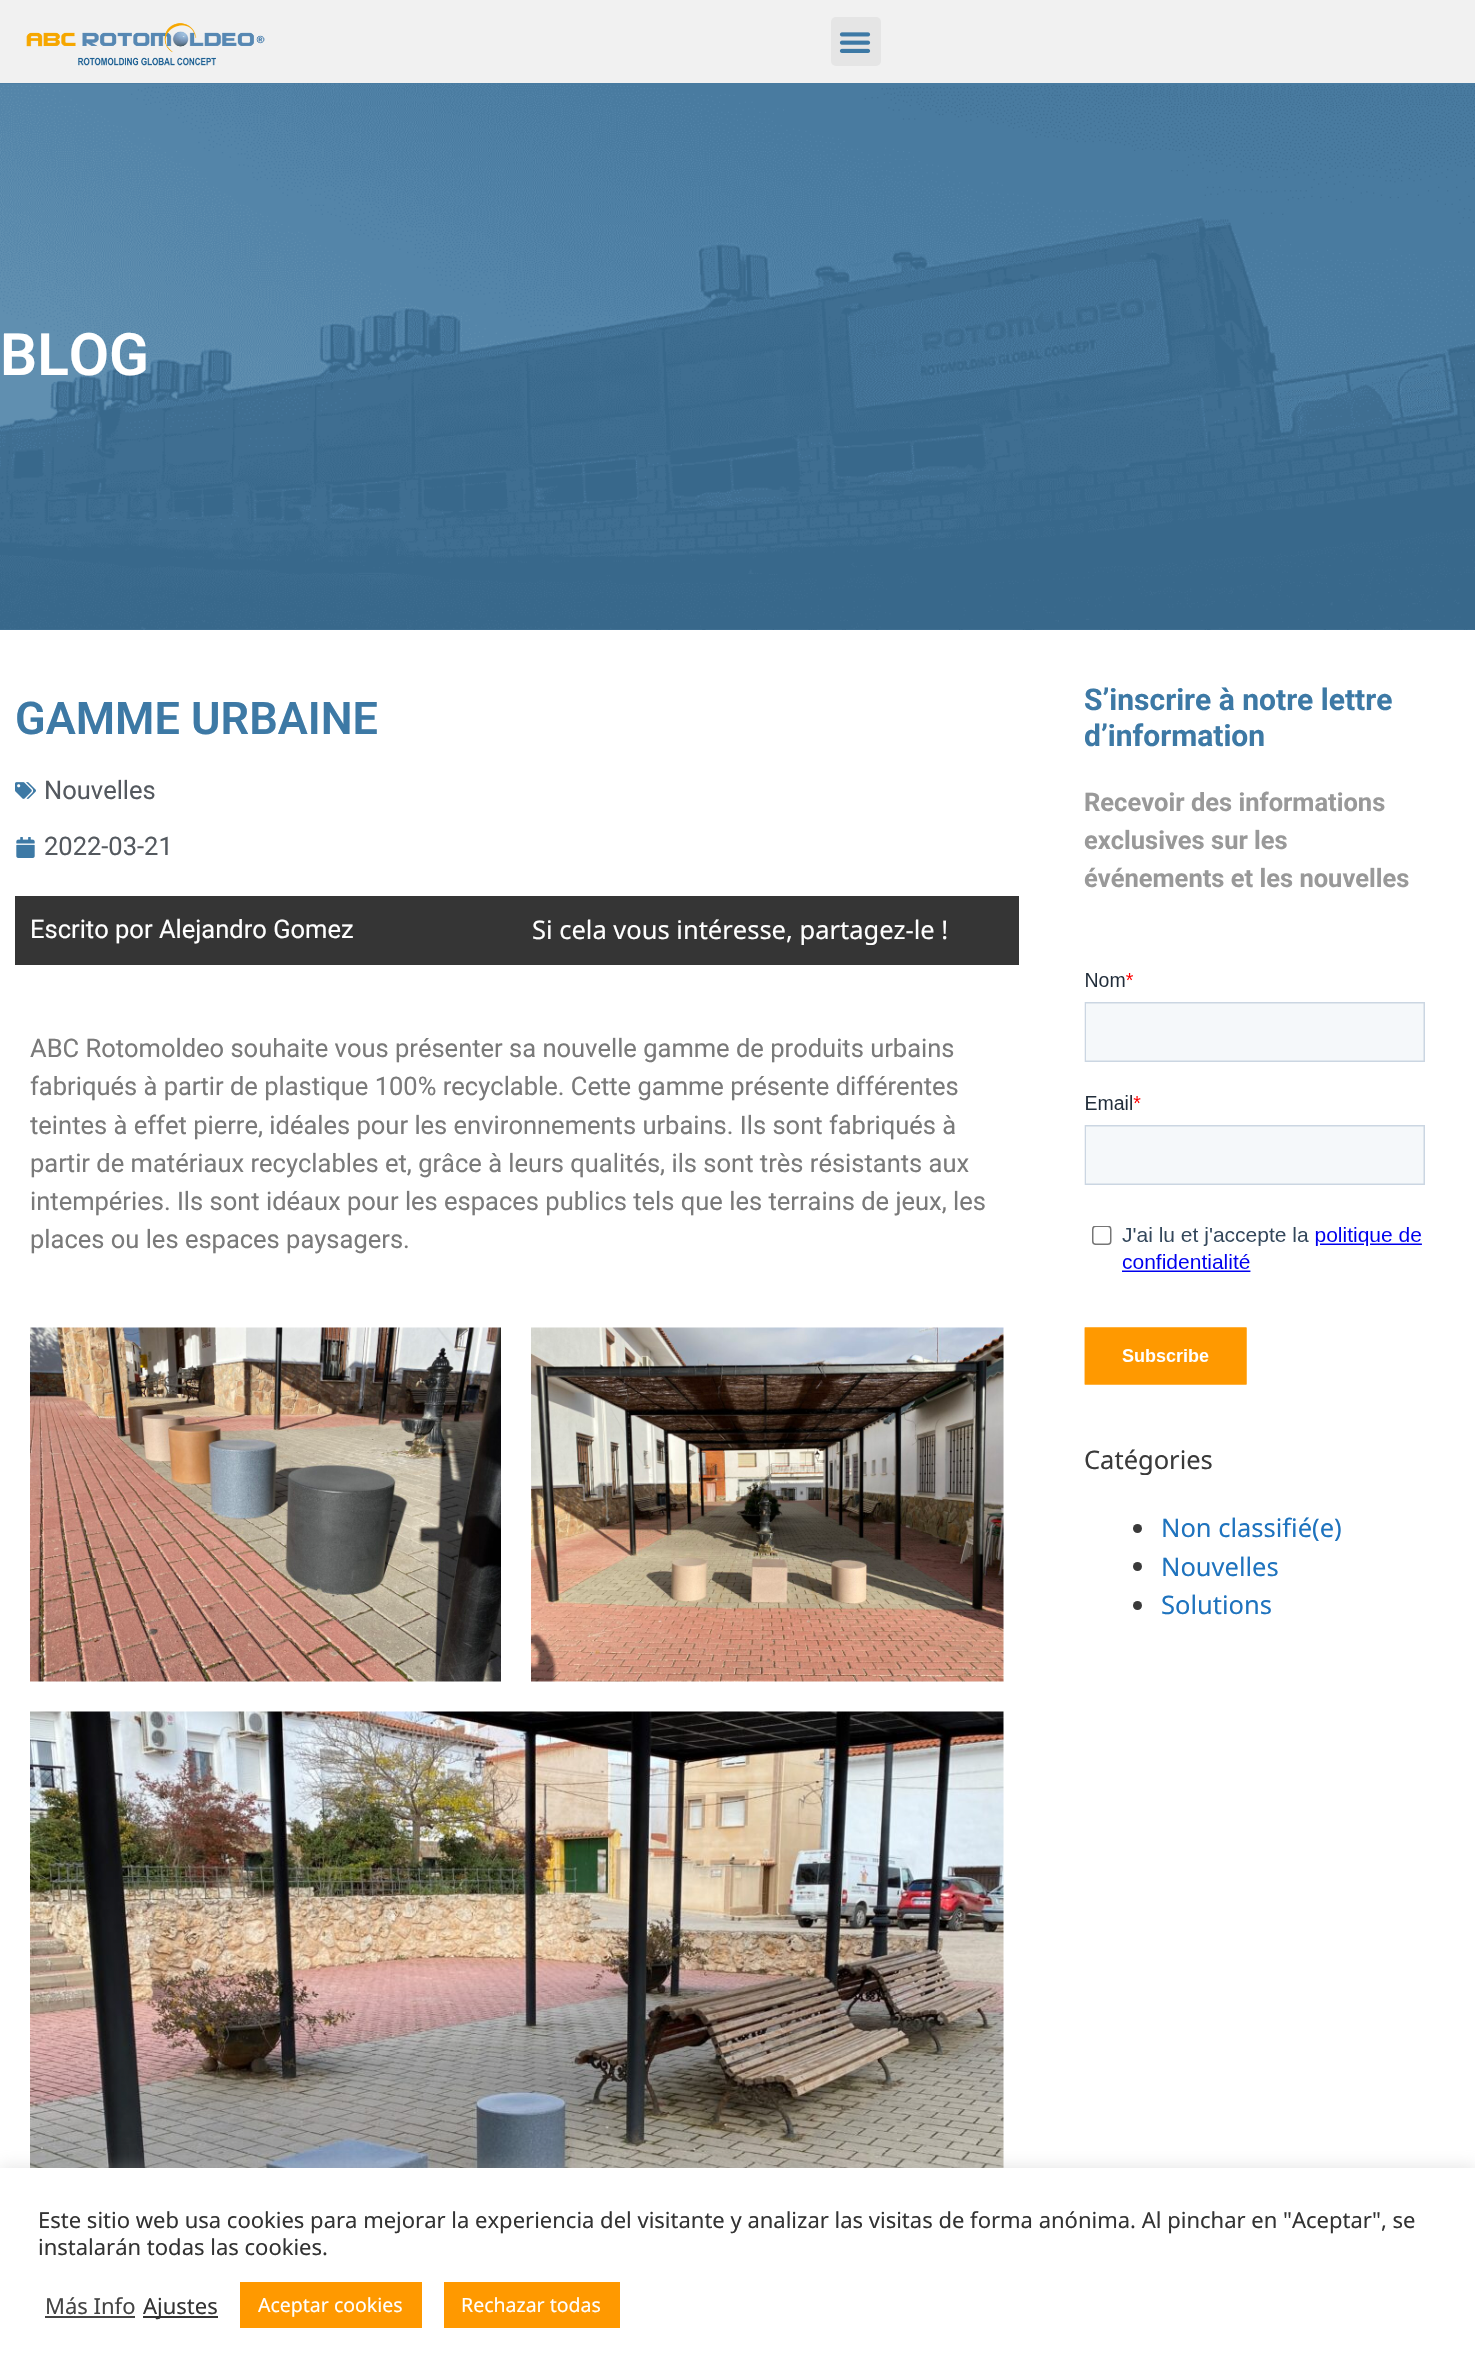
void draw(SkCanvas* canvas) {
	SkPaint fill;
	fill.setAntiAlias(true);
	auto makeFont = [&](const char* family, int weight, float size, bool italic = false) {
		SkFontStyle style(weight, SkFontStyle::kNormal_Width,
			italic ? SkFontStyle::kItalic_Slant : SkFontStyle::kUpright_Slant);
		SkFont result(fontMgr->matchFamilyStyle(family, style), size);
		result.setSubpixel(true);
		return result;
	};
	auto text = [&](const char* s, float x, float y, const SkFont& font) {
		canvas->drawString(s, x, y, font, fill);
	};
	auto box = [&](float l, float t, float r, float b) {
		canvas->drawRect(SkRect::MakeLTRB(l, t, r, b), fill);
	};
	auto roundBox = [&](float l, float t, float r, float b, float radius) {
		canvas->drawRoundRect(SkRect::MakeLTRB(l, t, r, b), radius, radius, fill);
	};
	auto picture = [&](const char* path, float l, float t, float r, float b) {
		auto image = SkImages::DeferredFromEncodedData(SkData::MakeFromFileName(path));
		canvas->drawImageRect(image, SkRect::MakeLTRB(l, t, r, b), SkSamplingOptions());
	};
	canvas->clear(0xFFFFFFFF);
	fill.setColor(0xFFF1F1F1);
	box(0, 0, 1475, 83);
	picture("image0.png", 26, 23, 265, 66);
	fill.setColor(0xFFE5E5E5);
	roundBox(831, 17, 881, 66, 5);
	picture("image1.png", 839, 32, 871, 53);
	fill.setColor(0xFF3D79A5);
	box(0, 83, 1475, 630);
	picture("image2.png", 0, 83, 1475, 630);
	picture("image3.png", 15, 782, 36, 799);
	picture("image4.png", 16, 837, 35, 858);
	fill.setColor(0xFF353535);
	box(15, 896, 1019, 965);
	picture("image5.png", 30, 1327, 501, 1682);
	picture("image6.png", 531, 1327, 1004, 1682);
	picture("image7.png", 30, 1711, 1004, 2168);
	picture("image8.png", 1084, 973, 1425, 1385);
	fill.setColor(0xFF3A3A3A);
	canvas->drawCircle(1137.5f, 1528.5f, 4.5f, fill);
	canvas->drawCircle(1137.5f, 1566.5f, 4.5f, fill);
	canvas->drawCircle(1137.5f, 1605.5f, 4.5f, fill);
	fill.setColor(0x4DACABAB);
	fill.setMaskFilter(SkMaskFilter::MakeBlur(kNormal_SkBlurStyle, 7.5f));
	canvas->drawRect(SkRect::MakeLTRB(0, 2166, 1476, 2372), fill);
	fill.setMaskFilter(nullptr);
	fill.setColor(0xFFFFFFFF);
	box(0, 2168, 1475, 2372);
	fill.setColor(0xFF444444);
	box(45, 2316, 135, 2318);
	fill.setColor(0xFF333333);
	box(143, 2316, 218, 2318);
	fill.setColor(0xFFFF9900);
	box(240, 2282, 422, 2328);
	box(444, 2282, 620, 2328);
	auto font1 = makeFont("Roboto", 600, 58.5f);
	fill.setColor(0xFFFFFFFF);
	text("BLOG", 0, 375, font1);
	auto font2 = makeFont("Roboto", 600, 45);
	fill.setColor(0xFF3D79A5);
	text("GAMME URBAINE", 15, 734, font2);
	auto font3 = makeFont("Roboto", 400, 25.5f);
	fill.setColor(0xFF54595F);
	text("Nouvelles", 44, 799, font3);
	text("2022-03-21", 44, 855, font3);
	fill.setColor(0xFFFFFFFF);
	text("Escrito por Alejandro Gomez", 30, 938, font3);
	auto font4 = makeFont("Noto Sans", 400, 25.5f);
	text("Si cela vous intéresse, partagez-le !", 532, 939, font4);
	fill.setColor(0xFF7A7A7A);
	text("ABC Rotomoldeo souhaite vous présenter sa nouvelle gamme de produits urbains", 30, 1057, font3);
	text("fabriqués à partir de plastique 100% recyclable. Cette gamme présente différentes", 30, 1095, font3);
	text("teintes à effet pierre, idéales pour les environnements urbains. Ils sont fabriqués à", 30, 1134, font3);
	text("partir de matériaux recyclables et, grâce à leurs qualités, ils sont très résistants aux", 30, 1172, font3);
	text("intempéries. Ils sont idéaux pour les espaces publics tels que les terrains de jeux, les", 30, 1210, font3);
	text("places ou les espaces paysagers.", 30, 1248, font3);
	auto font5 = makeFont("Roboto", 700, 30);
	fill.setColor(0xFF3D79A5);
	text("S’inscrire à notre lettre", 1084, 710, font5);
	text("d’information", 1084, 746, font5);
	auto font6 = makeFont("Roboto", 700, 25.5f);
	fill.setColor(0xFF999999);
	text("Recevoir des informations", 1084, 811, font6);
	text("exclusives sur les", 1084, 849, font6);
	text("événements et les nouvelles", 1084, 887, font6);
	fill.setColor(0xFF3A3A3A);
	text("Catégories", 1084, 1469, font4);
	fill.setColor(0xFF1E73BE);
	text("Non classifié(e)", 1161, 1537, font4);
	text("Nouvelles", 1161, 1576, font4);
	text("Solutions", 1161, 1614, font4);
	auto font7 = makeFont("Noto Sans", 400, 22);
	fill.setColor(0xFF333333);
	text("Este sitio web usa cookies para mejorar la experiencia del visitante y analizar las visitas de forma anónima. Al pinchar en \"Aceptar\", se", 38, 2228, font7);
	text("instalarán todas las cookies.", 38, 2255, font7);
	fill.setColor(0xFF444444);
	text("Más Info", 45, 2314, font7);
	fill.setColor(0xFF333333);
	text("Ajustes", 143, 2314, font7);
	auto font8 = makeFont("Noto Sans", 400, 19.5f);
	fill.setColor(0xFFFFFFFF);
	text("Aceptar cookies", 258, 2312, font8);
	text("Rechazar todas", 461, 2312, font8);
}
